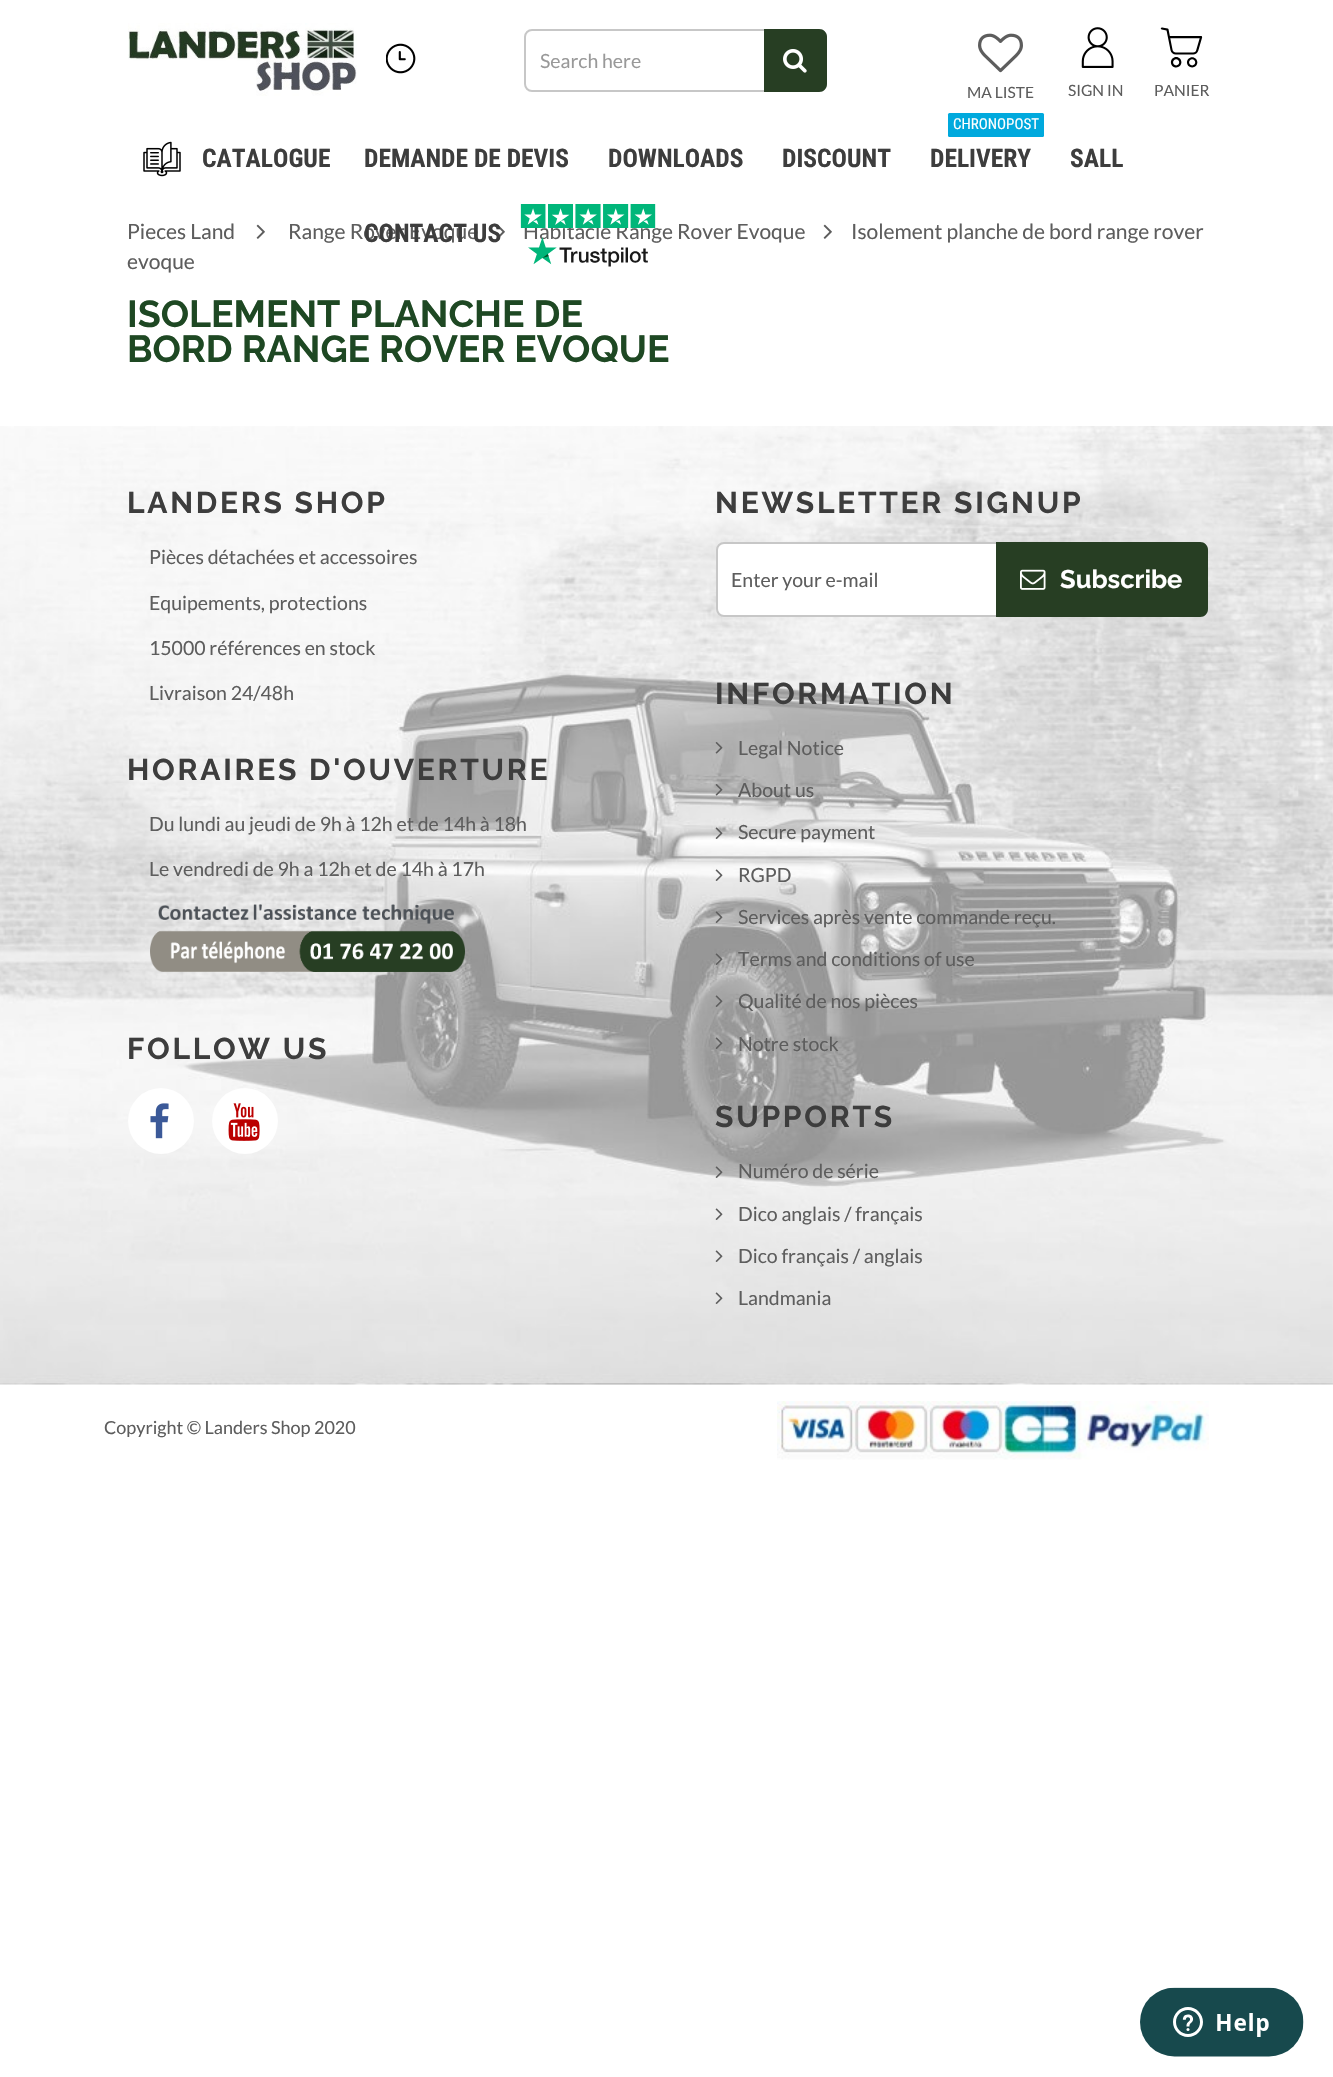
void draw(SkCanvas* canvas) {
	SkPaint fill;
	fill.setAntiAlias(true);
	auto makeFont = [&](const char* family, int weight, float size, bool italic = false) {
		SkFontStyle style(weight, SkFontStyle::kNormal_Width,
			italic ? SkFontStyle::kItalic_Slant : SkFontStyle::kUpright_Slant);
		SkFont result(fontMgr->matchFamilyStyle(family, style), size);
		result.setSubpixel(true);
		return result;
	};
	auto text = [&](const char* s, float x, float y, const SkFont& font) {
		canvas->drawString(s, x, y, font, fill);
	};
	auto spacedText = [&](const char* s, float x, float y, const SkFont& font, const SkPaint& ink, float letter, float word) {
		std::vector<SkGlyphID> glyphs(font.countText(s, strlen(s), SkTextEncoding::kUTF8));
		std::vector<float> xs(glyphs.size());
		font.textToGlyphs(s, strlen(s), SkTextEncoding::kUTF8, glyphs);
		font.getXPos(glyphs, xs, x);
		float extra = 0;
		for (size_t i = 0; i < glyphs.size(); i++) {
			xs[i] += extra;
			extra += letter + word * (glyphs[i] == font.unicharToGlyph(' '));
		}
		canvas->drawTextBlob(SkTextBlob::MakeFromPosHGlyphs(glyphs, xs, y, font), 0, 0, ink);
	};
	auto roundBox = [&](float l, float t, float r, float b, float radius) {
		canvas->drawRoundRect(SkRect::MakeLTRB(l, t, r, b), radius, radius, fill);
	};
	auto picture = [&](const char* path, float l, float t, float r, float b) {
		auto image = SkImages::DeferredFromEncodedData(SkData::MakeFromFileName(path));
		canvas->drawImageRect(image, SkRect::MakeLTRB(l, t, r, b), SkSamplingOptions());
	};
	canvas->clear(0xFFFFFFFF);
	picture("image0.png", 128, 23, 357, 96);
	picture("image1.png", 386, 43, 416, 74);
	fill.setStyle(SkPaint::kStroke_Style);
	fill.setStrokeWidth(2);
	fill.setColor(0xFFC7C7C7);
	canvas->drawRoundRect(SkRect::MakeLTRB(525, 30, 826, 91), 7, 7, fill);
	fill.setStyle(SkPaint::kFill_Style);
	fill.setColor(0xFF273E23);
	canvas->drawPath(SkPathBuilder().moveTo(764, 29).lineTo(819, 29).cubicTo(823.5f, 29, 827, 32.5f, 827, 37).lineTo(827, 84).cubicTo(827, 88.5f, 823.5f, 92, 819, 92).lineTo(764, 92).close().detach(), fill);
	picture("image2.png", 783, 49, 807, 73);
	picture("image3.png", 978, 33, 1023, 73);
	picture("image4.png", 1081, 27, 1114, 68);
	picture("image5.png", 1160, 27, 1203, 68);
	picture("image6.png", 143, 141, 181, 177);
	fill.setColor(0xFF00A9DD);
	roundBox(948, 113, 1044, 137, 1.5f);
	picture("image8.png", 496, 224, 505, 239);
	picture("image8.png", 823, 224, 832, 239);
	picture("image8.png", 256, 224, 265, 239);
	picture("image9.png", 0, 426, 1333, 1385);
	picture("image10.png", 150, 904, 465, 972);
	fill.setColor(0xFFFFFFFF);
	canvas->drawCircle(161, 1121, 33, fill);
	picture("image11.png", 150, 1103, 169, 1139);
	canvas->drawCircle(245, 1121, 33, fill);
	picture("image12.png", 228, 1103, 260, 1141);
	canvas->drawRoundRect(SkRect::MakeLTRB(717, 543, 1207, 616), 7, 7, fill);
	fill.setStyle(SkPaint::kStroke_Style);
	fill.setColor(0xFFC7C7C7);
	canvas->drawRoundRect(SkRect::MakeLTRB(717, 543, 1207, 616), 7, 7, fill);
	fill.setStyle(SkPaint::kFill_Style);
	fill.setColor(0xFF273E23);
	canvas->drawPath(SkPathBuilder().moveTo(996, 542).lineTo(1200, 542).cubicTo(1204.5f, 542, 1208, 545.5f, 1208, 550).lineTo(1208, 609).cubicTo(1208, 613.5f, 1204.5f, 617, 1200, 617).lineTo(996, 617).close().detach(), fill);
	picture("image13.png", 1020, 569, 1046, 590);
	picture("image14.png", 715, 742, 723, 754);
	picture("image15.png", 715, 784, 723, 796);
	picture("image16.png", 715, 827, 723, 839);
	picture("image17.png", 715, 869, 723, 881);
	picture("image18.png", 715, 911, 723, 923);
	picture("image19.png", 715, 953, 723, 965);
	picture("image20.png", 715, 995, 723, 1007);
	picture("image21.png", 715, 1037, 723, 1049);
	picture("image22.png", 715, 1166, 723, 1178);
	picture("image23.png", 715, 1208, 723, 1220);
	picture("image24.png", 715, 1250, 723, 1262);
	picture("image25.png", 715, 1292, 723, 1304);
	picture("image26.png", 777, 1401, 1209, 1460);
	picture("image27.png", 1140, 1987, 1304, 2057);
	auto font1 = makeFont("Lato", 400, 19.5f);
	fill.setColor(0xFF999999);
	text("Search here", 540, 68, font1);
	auto font2 = makeFont("Lato", 400, 15.5f);
	fill.setColor(0xFF5D5D5D);
	text("MA LISTE", 967, 98, font2);
	text("SIGN IN", 1068, 96, font2);
	text("PANIER", 1154, 96, font2);
	auto font3 = makeFont("Roboto Condensed", 700, 25.5f);
	fill.setColor(0xFF3D3D3D);
	text("CATALOGUE", 202, 167, font3);
	text("DEMANDE DE DEVIS", 364, 167, font3);
	text("DOWNLOADS", 608, 167, font3);
	text("DISCOUNT", 782, 167, font3);
	auto font4 = makeFont("Roboto Condensed", 400, 15);
	fill.setColor(0xFFFFFFFF);
	text("CHRONOPOST", 953, 129, font4);
	fill.setColor(0xFF3D3D3D);
	text("DELIVERY", 930, 167, font3);
	text("SALL", 1070, 167, font3);
	auto font5 = makeFont("Lato", 400, 21);
	fill.setColor(0xFF5D5D5D);
	text("Range Rover Evoque", 288, 239, font5);
	fill.setColor(0xFF3D3D3D);
	text("CONTACT US", 364, 242, font3);
	fill.setColor(0xFF5D5D5D);
	text("Habitacle Range Rover Evoque", 523, 239, font5);
	picture("image7.png", 520, 204, 656, 267);
	text("Isolement planche de bord range rover", 851, 239, font5);
	text("evoque", 127, 269, font5);
	text("Pieces Land", 127, 239, font5);
	auto font6 = makeFont("Raleway", 700, 37.5f);
	fill.setColor(0xFF1E4823);
	text("ISOLEMENT PLANCHE DE", 127, 327, font6);
	text("BORD RANGE ROVER EVOQUE", 127, 362, font6);
	auto font7 = makeFont("Raleway", 700, 30);
	fill.setColor(0xFF3D3D3D);
	spacedText("LANDERS SHOP", 127, 513, font7, fill, 2.75f, 0);
	fill.setColor(0xFF5D5D5D);
	text("Pièces détachées et accessoires", 149, 564, font1);
	text("Equipements, protections", 149, 610, font1);
	text("15000 références en stock", 149, 655, font1);
	text("Livraison 24/48h", 149, 700, font1);
	fill.setColor(0xFF3D3D3D);
	spacedText("HORAIRES D'OUVERTURE", 127, 780, font7, fill, 2.75f, 0);
	fill.setColor(0xFF5D5D5D);
	text("Du lundi au jeudi de 9h à 12h et de 14h à 18h", 149, 831, font1);
	text("Le vendredi de 9h a 12h et de 14h à 17h", 149, 876, font1);
	fill.setColor(0xFF3D3D3D);
	spacedText("FOLLOW US", 127, 1059, font7, fill, 2.75f, 0);
	spacedText("NEWSLETTER SIGNUP", 715, 513, font7, fill, 2.75f, 0);
	fill.setColor(0xFF5D5D5D);
	text("Enter your e-mail", 731, 587, font1);
	auto font8 = makeFont("Raleway", 700, 25.5f);
	fill.setColor(0xFFFFFFFF);
	text("Subscribe", 1060, 588, font8);
	fill.setColor(0xFF3D3D3D);
	spacedText("INFORMATION", 715, 704, font7, fill, 2.75f, 0);
	fill.setColor(0xFF5D5D5D);
	text("Legal Notice", 738, 755, font1);
	text("About us", 738, 797, font1);
	text("Secure payment", 738, 839, font1);
	text("RGPD", 738, 882, font1);
	text("Services après vente commande reçu.", 738, 924, font1);
	text("Terms and conditions of use", 738, 966, font1);
	text("Qualité de nos pièces", 738, 1008, font1);
	text("Notre stock", 738, 1051, font1);
	fill.setColor(0xFF3D3D3D);
	spacedText("SUPPORTS", 715, 1127, font7, fill, 2.75f, 0);
	fill.setColor(0xFF5D5D5D);
	text("Numéro de série", 738, 1178, font1);
	text("Dico anglais / français", 738, 1221, font1);
	text("Dico français / anglais", 738, 1263, font1);
	text("Landmania", 738, 1305, font1);
	auto font9 = makeFont("Lato", 400, 18);
	text("Copyright © Landers Shop 2020", 104, 1434, font9);
}
